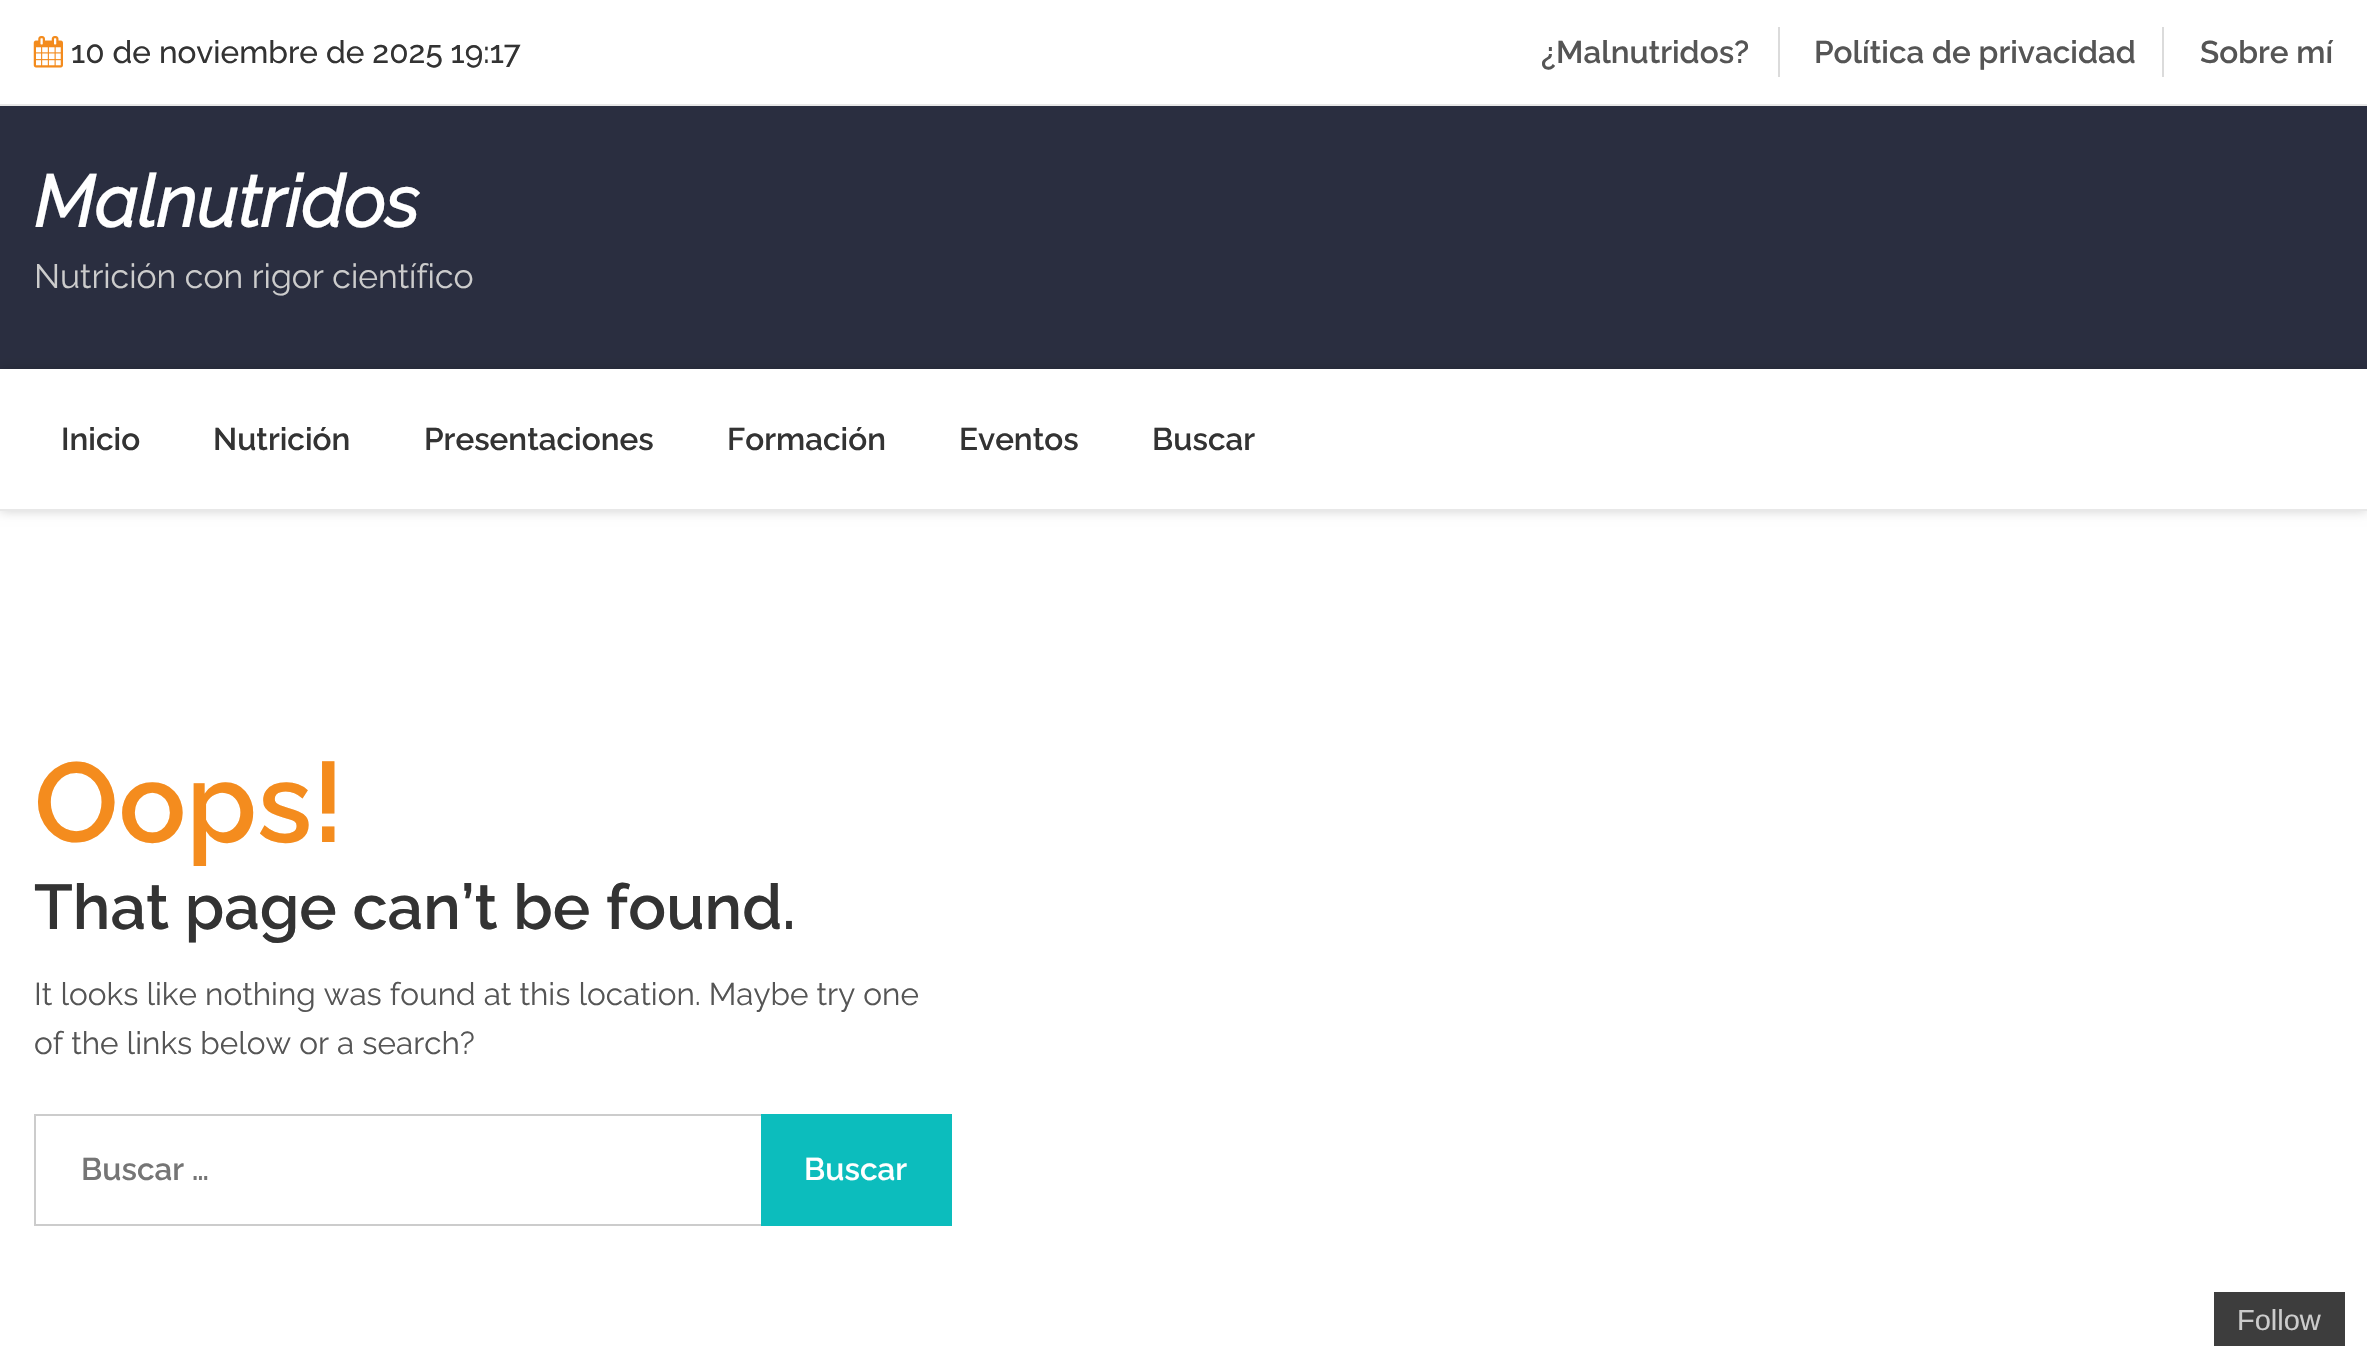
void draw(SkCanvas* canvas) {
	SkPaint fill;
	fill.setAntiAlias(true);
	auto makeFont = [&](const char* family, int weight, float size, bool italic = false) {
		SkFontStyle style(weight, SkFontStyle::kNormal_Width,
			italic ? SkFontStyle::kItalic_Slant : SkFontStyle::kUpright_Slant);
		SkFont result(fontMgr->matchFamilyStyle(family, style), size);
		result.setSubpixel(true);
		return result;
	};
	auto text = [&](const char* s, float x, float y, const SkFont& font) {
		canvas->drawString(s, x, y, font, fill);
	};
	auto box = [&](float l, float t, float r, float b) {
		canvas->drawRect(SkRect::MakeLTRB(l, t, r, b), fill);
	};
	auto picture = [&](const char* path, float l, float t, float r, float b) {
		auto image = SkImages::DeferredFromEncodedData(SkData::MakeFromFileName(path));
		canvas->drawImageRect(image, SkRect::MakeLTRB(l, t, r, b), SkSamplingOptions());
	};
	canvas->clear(0xFFFFFFFF);
	fill.setColor(0xFF2A2E40);
	box(0, 106, 2367, 369);
	fill.setColor(0xFFE7E7E7);
	box(0, 104, 2367, 106);
	picture("image0.png", 33, 36, 63, 68);
	fill.setColor(0xFFDBDBDB);
	box(1778, 27, 1780, 77);
	box(2162, 27, 2164, 77);
	fill.setColor(0x2E000000);
	fill.setMaskFilter(SkMaskFilter::MakeBlur(kNormal_SkBlurStyle, 5.5f));
	canvas->drawRect(SkRect::MakeLTRB(0, 369, 2367, 511), fill);
	fill.setMaskFilter(nullptr);
	fill.setColor(0xFFFFFFFF);
	box(0, 369, 2367, 509);
	fill.setColor(0xFFE8E8E8);
	box(0, 509, 2367, 511);
	fill.setStyle(SkPaint::kStroke_Style);
	fill.setStrokeWidth(2);
	fill.setColor(0xFFCCCCCC);
	canvas->drawRect(SkRect::MakeLTRB(35, 1115, 951, 1225), fill);
	fill.setStyle(SkPaint::kFill_Style);
	fill.setColor(0xFF0CBDBD);
	box(761, 1114, 952, 1226);
	fill.setColor(0xFF3D3D3D);
	box(2214, 1292, 2345, 1346);
	auto font1 = makeFont("Raleway", 500, 31.5f);
	fill.setColor(0xFF333333);
	text("10 de noviembre de 2025 19:17", 71, 63, font1);
	auto font2 = makeFont("Raleway", 600, 31.5f);
	fill.setColor(0xFF555555);
	text("¿Malnutridos?", 1541, 63, font2);
	text("Política de privacidad", 1814, 63, font2);
	text("Sobre mí", 2200, 63, font2);
	auto font3 = makeFont("Raleway", 700, 72, true);
	fill.setColor(0xFFFFFFFF);
	text("Malnutridos", 34, 227, font3);
	auto font4 = makeFont("Raleway", 400, 33.75f);
	fill.setColor(0xFFCCCCCC);
	text("Nutrición con rigor científico", 34, 288, font4);
	fill.setColor(0xFF333333);
	text("Inicio", 61, 450, font2);
	text("Nutrición", 213, 450, font2);
	text("Presentaciones", 424, 450, font2);
	text("Formación", 727, 450, font2);
	text("Eventos", 959, 450, font2);
	text("Buscar", 1152, 450, font2);
	auto font5 = makeFont("Raleway", 600, 112.5f);
	fill.setColor(0xFFF48C1E);
	text("Oops!", 34, 842, font5);
	auto font6 = makeFont("Raleway", 600, 63);
	fill.setColor(0xFF333333);
	text("That page can’t be found.", 34, 929, font6);
	auto font7 = makeFont("Raleway", 400, 31.5f);
	fill.setColor(0xFF555555);
	text("It looks like nothing was found at this location. Maybe try one", 34, 1005, font7);
	text("of the links below or a search?", 34, 1054, font7);
	fill.setColor(0xFF757575);
	text("Buscar …", 81, 1180, font2);
	fill.setColor(0xFFFFFFFF);
	text("Buscar", 804, 1180, font2);
	auto font8 = makeFont("Liberation Sans", 400, 29);
	fill.setColor(0xFFCCCCCC);
	text("Follow", 2237, 1330, font8);
}
